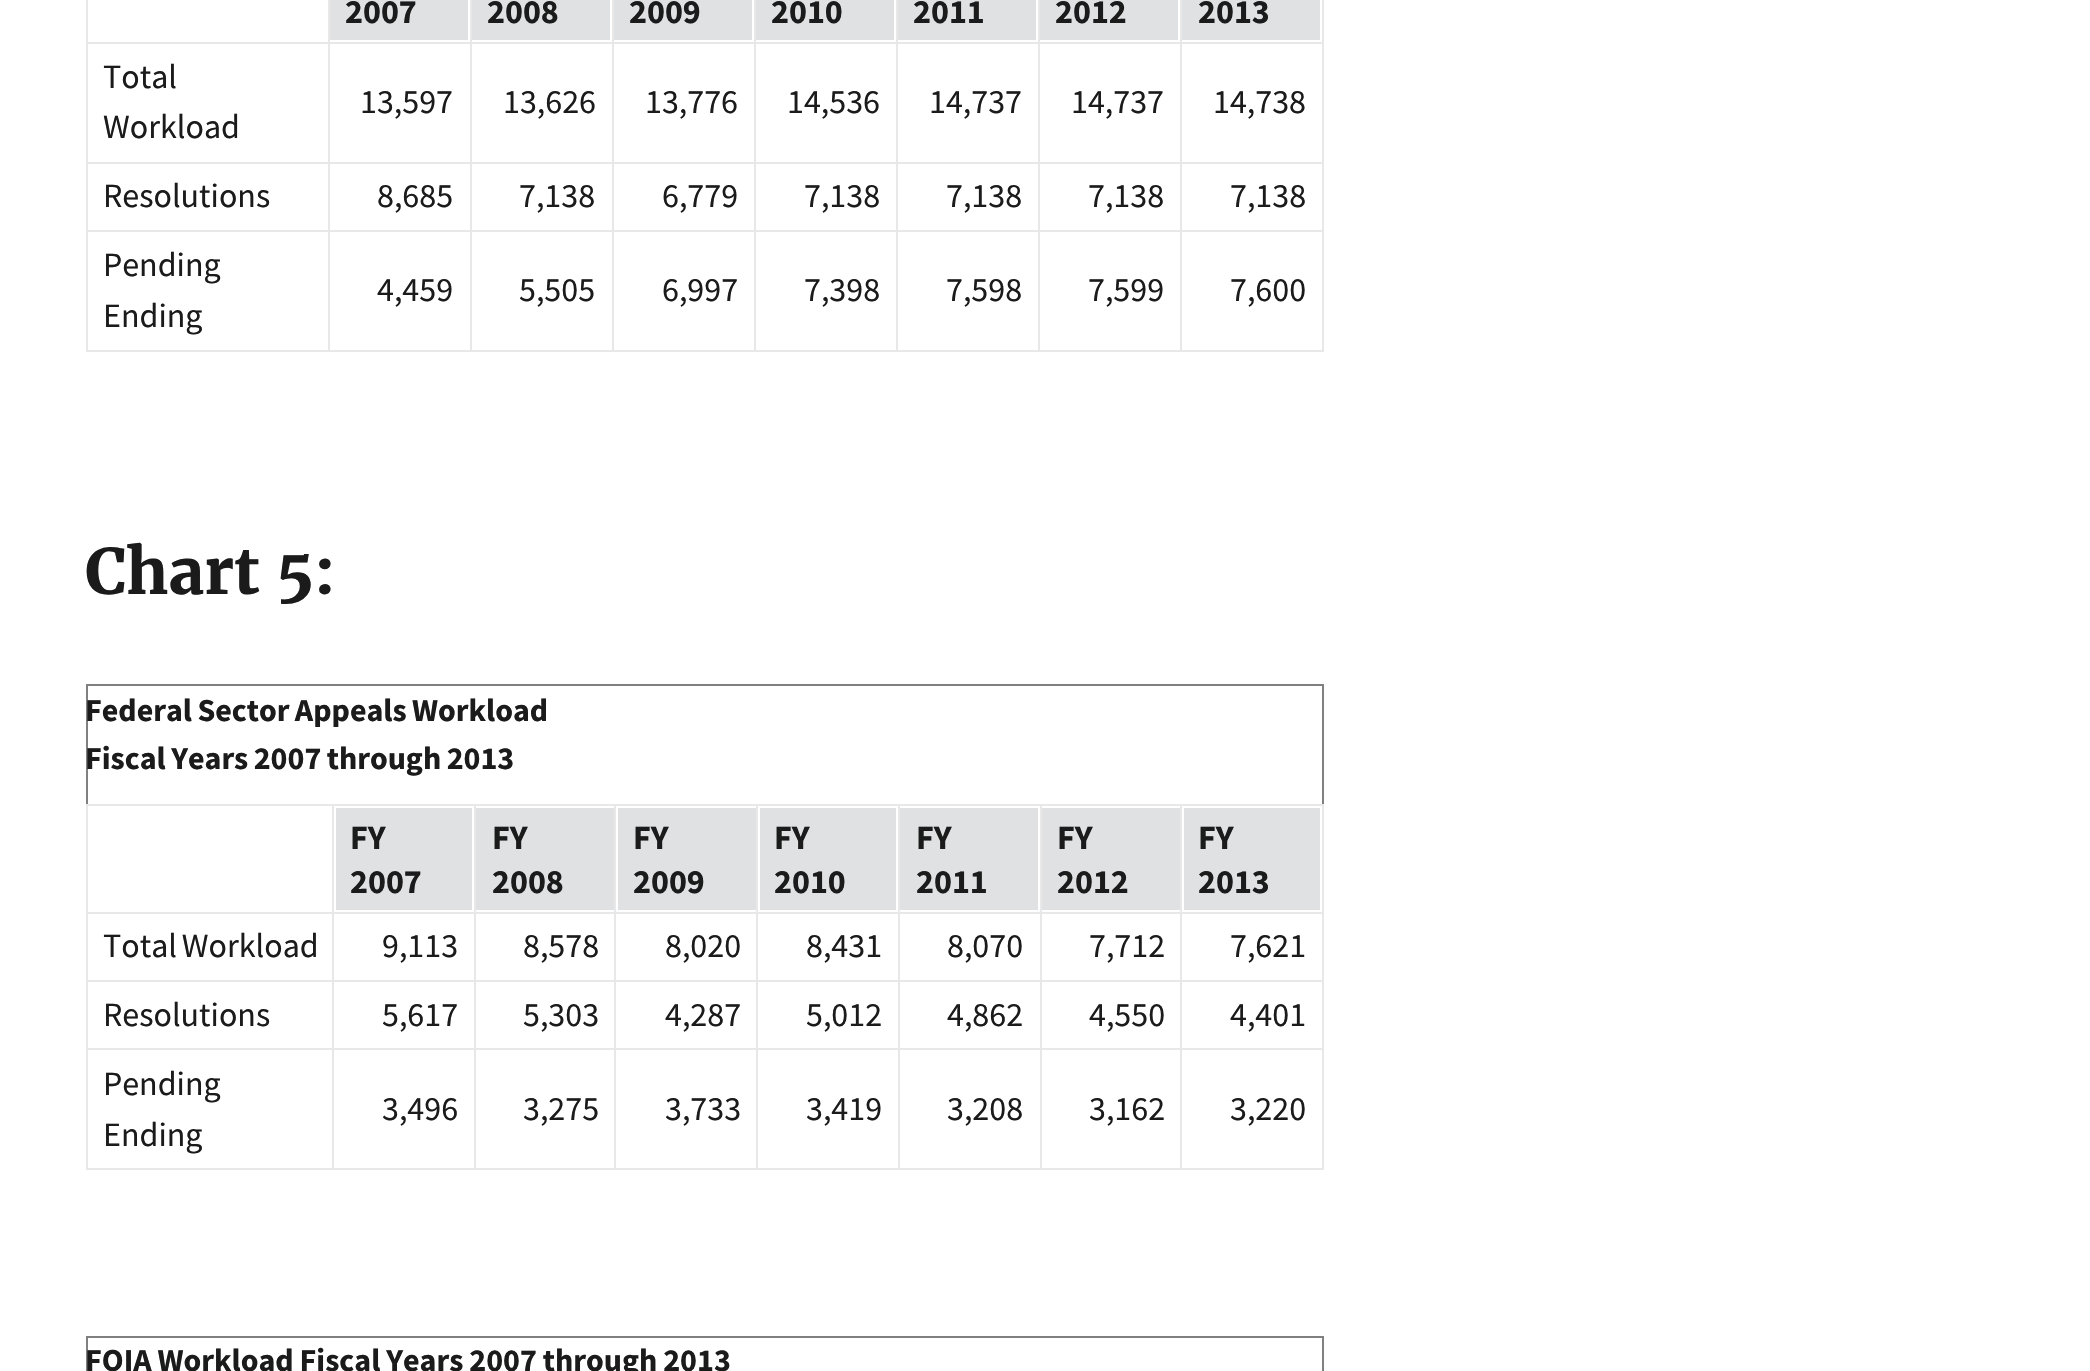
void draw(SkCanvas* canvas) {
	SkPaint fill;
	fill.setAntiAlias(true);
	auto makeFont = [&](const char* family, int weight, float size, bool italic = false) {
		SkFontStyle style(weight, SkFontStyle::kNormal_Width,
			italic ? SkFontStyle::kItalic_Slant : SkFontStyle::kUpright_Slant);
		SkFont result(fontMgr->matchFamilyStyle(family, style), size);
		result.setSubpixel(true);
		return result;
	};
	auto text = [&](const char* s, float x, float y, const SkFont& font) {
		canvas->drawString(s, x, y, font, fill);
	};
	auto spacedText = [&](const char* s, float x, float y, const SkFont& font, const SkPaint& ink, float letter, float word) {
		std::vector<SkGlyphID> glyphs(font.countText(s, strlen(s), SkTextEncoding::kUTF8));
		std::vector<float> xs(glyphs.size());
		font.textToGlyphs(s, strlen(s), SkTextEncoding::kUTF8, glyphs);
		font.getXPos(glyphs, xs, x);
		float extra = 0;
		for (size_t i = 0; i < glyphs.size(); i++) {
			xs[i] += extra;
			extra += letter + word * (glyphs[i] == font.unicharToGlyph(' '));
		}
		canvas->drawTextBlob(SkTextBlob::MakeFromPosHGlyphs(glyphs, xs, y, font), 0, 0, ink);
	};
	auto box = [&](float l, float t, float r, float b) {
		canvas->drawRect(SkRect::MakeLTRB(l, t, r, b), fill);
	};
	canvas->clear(0xFFFFFFFF);
	fill.setColor(0xFFDFE1E2);
	box(330, 0, 468, 40);
	fill.setColor(0xFFE8E8E8);
	box(1180, 42, 1324, 44);
	box(1180, 162, 1324, 164);
	box(1180, 230, 1324, 232);
	box(1322, 230, 1324, 352);
	box(1180, 350, 1324, 352);
	box(1180, 230, 1182, 352);
	box(1038, 230, 1182, 232);
	box(1180, 162, 1182, 232);
	box(1038, 162, 1182, 164);
	box(1180, 42, 1182, 164);
	box(1038, 42, 1182, 44);
	box(1038, 350, 1182, 352);
	box(1038, 230, 1040, 352);
	box(896, 230, 1040, 232);
	box(1038, 162, 1040, 232);
	box(896, 162, 1040, 164);
	box(1038, 42, 1040, 164);
	box(896, 42, 1040, 44);
	box(896, 350, 1040, 352);
	box(896, 230, 898, 352);
	box(754, 230, 898, 232);
	box(896, 162, 898, 232);
	box(754, 162, 898, 164);
	box(896, 42, 898, 164);
	box(754, 42, 898, 44);
	box(754, 350, 898, 352);
	box(754, 230, 756, 352);
	box(612, 230, 756, 232);
	box(754, 162, 756, 232);
	box(612, 162, 756, 164);
	box(754, 42, 756, 164);
	box(612, 42, 756, 44);
	box(612, 350, 756, 352);
	box(612, 230, 614, 352);
	box(470, 230, 614, 232);
	box(612, 162, 614, 232);
	box(470, 162, 614, 164);
	box(612, 42, 614, 164);
	box(470, 42, 614, 44);
	box(470, 350, 614, 352);
	box(470, 230, 472, 352);
	box(328, 230, 472, 232);
	box(470, 162, 472, 232);
	box(328, 162, 472, 164);
	box(470, 42, 472, 164);
	box(328, 42, 472, 44);
	box(328, 350, 472, 352);
	box(328, 230, 330, 352);
	box(86, 230, 330, 232);
	box(328, 162, 330, 232);
	box(86, 162, 330, 164);
	box(328, 42, 330, 164);
	box(86, 42, 330, 44);
	box(328, 0, 330, 44);
	fill.setColor(0xFFDFE1E2);
	box(472, 0, 610, 40);
	fill.setColor(0xFFE8E8E8);
	box(470, 0, 472, 44);
	fill.setColor(0xFFDFE1E2);
	box(614, 0, 752, 40);
	fill.setColor(0xFFE8E8E8);
	box(612, 0, 614, 44);
	fill.setColor(0xFFDFE1E2);
	box(756, 0, 894, 40);
	fill.setColor(0xFFE8E8E8);
	box(754, 0, 756, 44);
	fill.setColor(0xFFDFE1E2);
	box(898, 0, 1036, 40);
	fill.setColor(0xFFE8E8E8);
	box(896, 0, 898, 44);
	fill.setColor(0xFFDFE1E2);
	box(1040, 0, 1178, 40);
	fill.setColor(0xFFE8E8E8);
	box(1038, 0, 1040, 44);
	fill.setColor(0xFFDFE1E2);
	box(1182, 0, 1320, 40);
	fill.setColor(0xFFE8E8E8);
	box(1180, 0, 1182, 44);
	box(86, 350, 330, 352);
	box(86, 230, 88, 352);
	box(86, 162, 88, 232);
	box(86, 0, 88, 164);
	box(1322, 162, 1324, 232);
	box(1322, 0, 1324, 164);
	fill.setColor(0xFF808080);
	box(86, 684, 1324, 686);
	box(1322, 684, 1324, 804);
	box(86, 684, 88, 804);
	fill.setColor(0xFFE8E8E8);
	box(1180, 804, 1324, 806);
	box(1180, 912, 1324, 914);
	box(1180, 980, 1324, 982);
	box(1180, 1048, 1324, 1050);
	box(1322, 1048, 1324, 1170);
	box(1180, 1168, 1324, 1170);
	box(1180, 1048, 1182, 1170);
	box(1040, 1048, 1182, 1050);
	box(1180, 980, 1182, 1050);
	box(1040, 980, 1182, 982);
	box(1180, 912, 1182, 982);
	box(1040, 912, 1182, 914);
	box(1180, 804, 1182, 914);
	box(1040, 804, 1182, 806);
	box(1040, 1168, 1182, 1170);
	box(1040, 1048, 1042, 1170);
	box(898, 1048, 1042, 1050);
	box(1040, 980, 1042, 1050);
	box(898, 980, 1042, 982);
	box(1040, 912, 1042, 982);
	box(898, 912, 1042, 914);
	box(1040, 804, 1042, 914);
	box(898, 804, 1042, 806);
	box(898, 1168, 1042, 1170);
	box(898, 1048, 900, 1170);
	box(756, 1048, 900, 1050);
	box(898, 980, 900, 1050);
	box(756, 980, 900, 982);
	box(898, 912, 900, 982);
	box(756, 912, 900, 914);
	box(898, 804, 900, 914);
	box(756, 804, 900, 806);
	box(756, 1168, 900, 1170);
	box(756, 1048, 758, 1170);
	box(614, 1048, 758, 1050);
	box(756, 980, 758, 1050);
	box(614, 980, 758, 982);
	box(756, 912, 758, 982);
	box(614, 912, 758, 914);
	box(756, 804, 758, 914);
	box(614, 804, 758, 806);
	box(614, 1168, 758, 1170);
	box(614, 1048, 616, 1170);
	box(474, 1048, 616, 1050);
	box(614, 980, 616, 1050);
	box(474, 980, 616, 982);
	box(614, 912, 616, 982);
	box(474, 912, 616, 914);
	box(614, 804, 616, 914);
	box(474, 804, 616, 806);
	box(474, 1168, 616, 1170);
	box(474, 1048, 476, 1170);
	box(332, 1048, 476, 1050);
	box(474, 980, 476, 1050);
	box(332, 980, 476, 982);
	box(474, 912, 476, 982);
	box(332, 912, 476, 914);
	box(474, 804, 476, 914);
	box(332, 804, 476, 806);
	box(332, 1168, 476, 1170);
	box(332, 1048, 334, 1170);
	box(86, 1048, 334, 1050);
	box(332, 980, 334, 1050);
	box(86, 980, 334, 982);
	box(332, 912, 334, 982);
	box(86, 912, 334, 914);
	box(332, 804, 334, 914);
	box(86, 804, 334, 806);
	box(86, 1168, 334, 1170);
	box(86, 1048, 88, 1170);
	box(86, 980, 88, 1050);
	box(86, 912, 88, 982);
	box(86, 804, 88, 914);
	fill.setColor(0xFFDFE1E2);
	box(336, 808, 472, 910);
	box(476, 808, 614, 910);
	box(618, 808, 756, 910);
	box(760, 808, 896, 910);
	box(900, 808, 1038, 910);
	box(1042, 808, 1180, 910);
	box(1184, 808, 1320, 910);
	fill.setColor(0xFFE8E8E8);
	box(1322, 980, 1324, 1050);
	box(1322, 912, 1324, 982);
	box(1322, 804, 1324, 914);
	fill.setColor(0xFF808080);
	box(86, 1336, 1324, 1338);
	box(1322, 1336, 1324, 1371);
	box(86, 1336, 88, 1371);
	auto font1 = makeFont("Source Sans Pro", 700, 34);
	fill.setColor(0xFF1B1B1B);
	text("2007", 345, 23, font1);
	text("2008", 487, 23, font1);
	text("2009", 629, 23, font1);
	text("2010", 771, 23, font1);
	text("2011", 913, 23, font1);
	text("2012", 1055, 23, font1);
	text("2013", 1198, 23, font1);
	auto font2 = makeFont("Source Sans Pro", 400, 34);
	text("Total", 103, 88, font2);
	text("Workload", 103, 138, font2);
	text("13,597", 360, 113, font2);
	text("13,626", 503, 113, font2);
	text("13,776", 645, 113, font2);
	text("14,536", 787, 113, font2);
	text("14,737", 929, 113, font2);
	text("14,737", 1071, 113, font2);
	text("14,738", 1213, 113, font2);
	text("Resolutions", 103, 207, font2);
	text("8,685", 377, 207, font2);
	text("7,138", 519, 207, font2);
	text("6,779", 662, 207, font2);
	text("7,138", 804, 207, font2);
	text("7,138", 946, 207, font2);
	text("7,138", 1088, 207, font2);
	text("7,138", 1230, 207, font2);
	text("Pending", 103, 276, font2);
	text("Ending", 103, 327, font2);
	text("4,459", 377, 301, font2);
	text("5,505", 519, 301, font2);
	text("6,997", 662, 301, font2);
	text("7,398", 804, 301, font2);
	text("7,598", 946, 301, font2);
	text("7,599", 1088, 301, font2);
	text("7,600", 1230, 301, font2);
	auto font3 = makeFont("Merriweather", 700, 62.5f);
	text("Chart 5:", 85, 594, font3);
	auto font4 = makeFont("Source Sans Pro", 700, 32);
	spacedText("Federal Sector Appeals Workload", 85, 721, font4, fill, 0, -1);
	spacedText("Fiscal Years 2007 through 2013", 85, 769, font4, fill, 0, -1);
	text("FY", 350, 849, font1);
	text("2007", 350, 893, font1);
	text("FY", 492, 849, font1);
	text("2008", 492, 893, font1);
	text("FY", 633, 849, font1);
	text("2009", 633, 893, font1);
	text("FY", 774, 849, font1);
	text("2010", 774, 893, font1);
	text("FY", 916, 849, font1);
	text("2011", 916, 893, font1);
	text("FY", 1057, 849, font1);
	text("2012", 1057, 893, font1);
	text("FY", 1198, 849, font1);
	text("2013", 1198, 893, font1);
	spacedText("Total Workload", 103, 957, font2, fill, 0, -2);
	text("9,113", 382, 957, font2);
	text("8,578", 523, 957, font2);
	text("8,020", 665, 957, font2);
	text("8,431", 806, 957, font2);
	text("8,070", 947, 957, font2);
	text("7,712", 1089, 957, font2);
	text("7,621", 1230, 957, font2);
	text("Resolutions", 103, 1026, font2);
	text("5,617", 382, 1026, font2);
	text("5,303", 523, 1026, font2);
	text("4,287", 665, 1026, font2);
	text("5,012", 806, 1026, font2);
	text("4,862", 947, 1026, font2);
	text("4,550", 1089, 1026, font2);
	text("4,401", 1230, 1026, font2);
	text("Pending", 103, 1095, font2);
	text("Ending", 103, 1146, font2);
	text("3,496", 382, 1120, font2);
	text("3,275", 523, 1120, font2);
	text("3,733", 665, 1120, font2);
	text("3,419", 806, 1120, font2);
	text("3,208", 947, 1120, font2);
	text("3,162", 1089, 1120, font2);
	text("3,220", 1230, 1120, font2);
	spacedText("FOIA Workload Fiscal Years 2007 through 2013", 85, 1371, font4, fill, 0, -0.5f);
}
